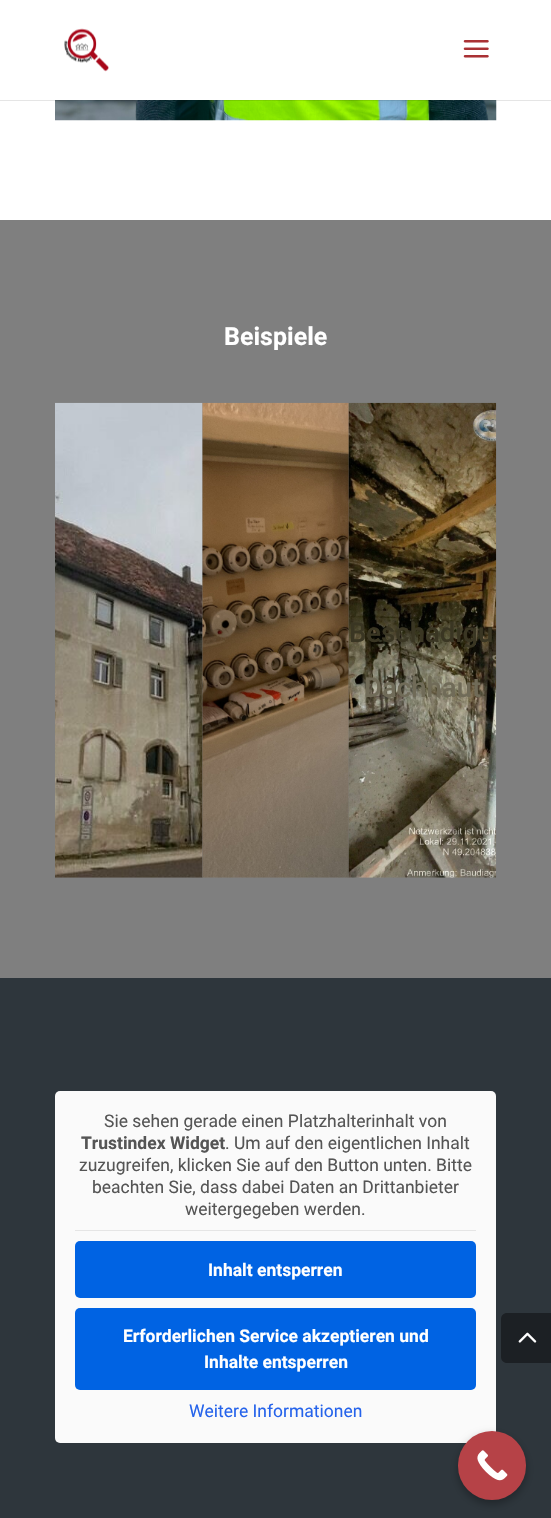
void draw(SkCanvas* canvas) {
	SkPaint fill;
	fill.setAntiAlias(true);
	auto makeFont = [&](const char* family, int weight, float size, bool italic = false) {
		SkFontStyle style(weight, SkFontStyle::kNormal_Width,
			italic ? SkFontStyle::kItalic_Slant : SkFontStyle::kUpright_Slant);
		SkFont result(fontMgr->matchFamilyStyle(family, style), size);
		result.setSubpixel(true);
		return result;
	};
	auto text = [&](const char* s, float x, float y, const SkFont& font) {
		canvas->drawString(s, x, y, font, fill);
	};
	auto box = [&](float l, float t, float r, float b) {
		canvas->drawRect(SkRect::MakeLTRB(l, t, r, b), fill);
	};
	auto roundBox = [&](float l, float t, float r, float b, float radius) {
		canvas->drawRoundRect(SkRect::MakeLTRB(l, t, r, b), radius, radius, fill);
	};
	auto picture = [&](const char* path, float l, float t, float r, float b) {
		auto image = SkImages::DeferredFromEncodedData(SkData::MakeFromFileName(path));
		canvas->drawImageRect(image, SkRect::MakeLTRB(l, t, r, b), SkSamplingOptions());
	};
	canvas->clear(0xFFFFFFFF);
	picture("image2.png", 55, 100, 497, 121);
	fill.setColor(0x1A000000);
	box(0, 100, 551, 101);
	picture("image0.png", 64, 28, 109, 72);
	picture("image1.png", 463, 40, 489, 58);
	fill.setColor(0xFF7F7F7F);
	box(0, 220, 551, 978);
	picture("image3.png", 55, 402, 203, 878);
	picture("image4.png", 202, 402, 349, 878);
	picture("image5.png", 348, 402, 497, 878);
	fill.setColor(0xFF2E363C);
	box(0, 978, 551, 1518);
	fill.setColor(0xFFFAFAFA);
	roundBox(55, 1091, 496, 1443, 5);
	fill.setColor(0xFFE5E5E5);
	box(75, 1230, 476, 1231);
	fill.setColor(0xFF0063E3);
	roundBox(75, 1241, 476, 1298, 5);
	roundBox(75, 1308, 476, 1390, 5);
	fill.setColor(0xFF1C2024);
	canvas->drawPath(SkPathBuilder().moveTo(507, 1313).lineTo(551, 1313).lineTo(551, 1363).lineTo(507, 1363).cubicTo(503.5f, 1363, 501, 1360.5f, 501, 1357).lineTo(501, 1319).cubicTo(501, 1315.5f, 503.5f, 1313, 507, 1313).close().detach(), fill);
	picture("image6.png", 518, 1332, 537, 1343);
	fill.setColor(0x4D000000);
	fill.setMaskFilter(SkMaskFilter::MakeBlur(kNormal_SkBlurStyle, 4));
	canvas->drawRoundRect(SkRect::MakeLTRB(458, 1435, 526, 1504), 34, 34, fill);
	fill.setMaskFilter(nullptr);
	fill.setColor(0xFFB64247);
	roundBox(458, 1431, 526, 1500, 34);
	picture("image7.png", 477, 1450, 508, 1481);
	auto font1 = makeFont("Roboto", 700, 25);
	fill.setColor(0xFFFFFFFF);
	text("Beispiele", 224, 345, font1);
	auto font2 = makeFont("Roboto", 500, 27.5f);
	fill.setColor(0xFF3A3623);
	text("Beschädigu", 349, 642, font2);
	fill.setColor(0xFF706B58);
	text("Dachhaut", 364, 697, font2);
	auto font3 = makeFont("Roboto", 400, 17.5f);
	fill.setColor(0xFF555555);
	text("Sie sehen gerade einen Platzhalterinhalt von", 104, 1127, font3);
	auto font4 = makeFont("Roboto", 700, 17.5f);
	text("Trustindex Widget", 81, 1149, font4);
	text(". Um auf den eigentlichen Inhalt", 225, 1149, font3);
	text("zuzugreifen, klicken Sie auf den Button unten. Bitte", 79, 1171, font3);
	text("beachten Sie, dass dabei Daten an Drittanbieter", 92, 1193, font3);
	text("weitergegeben werden.", 185, 1215, font3);
	fill.setColor(0xFFFFFFFF);
	text("Inhalt entsperren", 208, 1276, font4);
	text("Erforderlichen Service akzeptieren und", 123, 1342, font4);
	text("Inhalte entsperren", 204, 1368, font4);
	fill.setColor(0xFF2563EB);
	text("Weitere Informationen", 189, 1417, font3);
}
